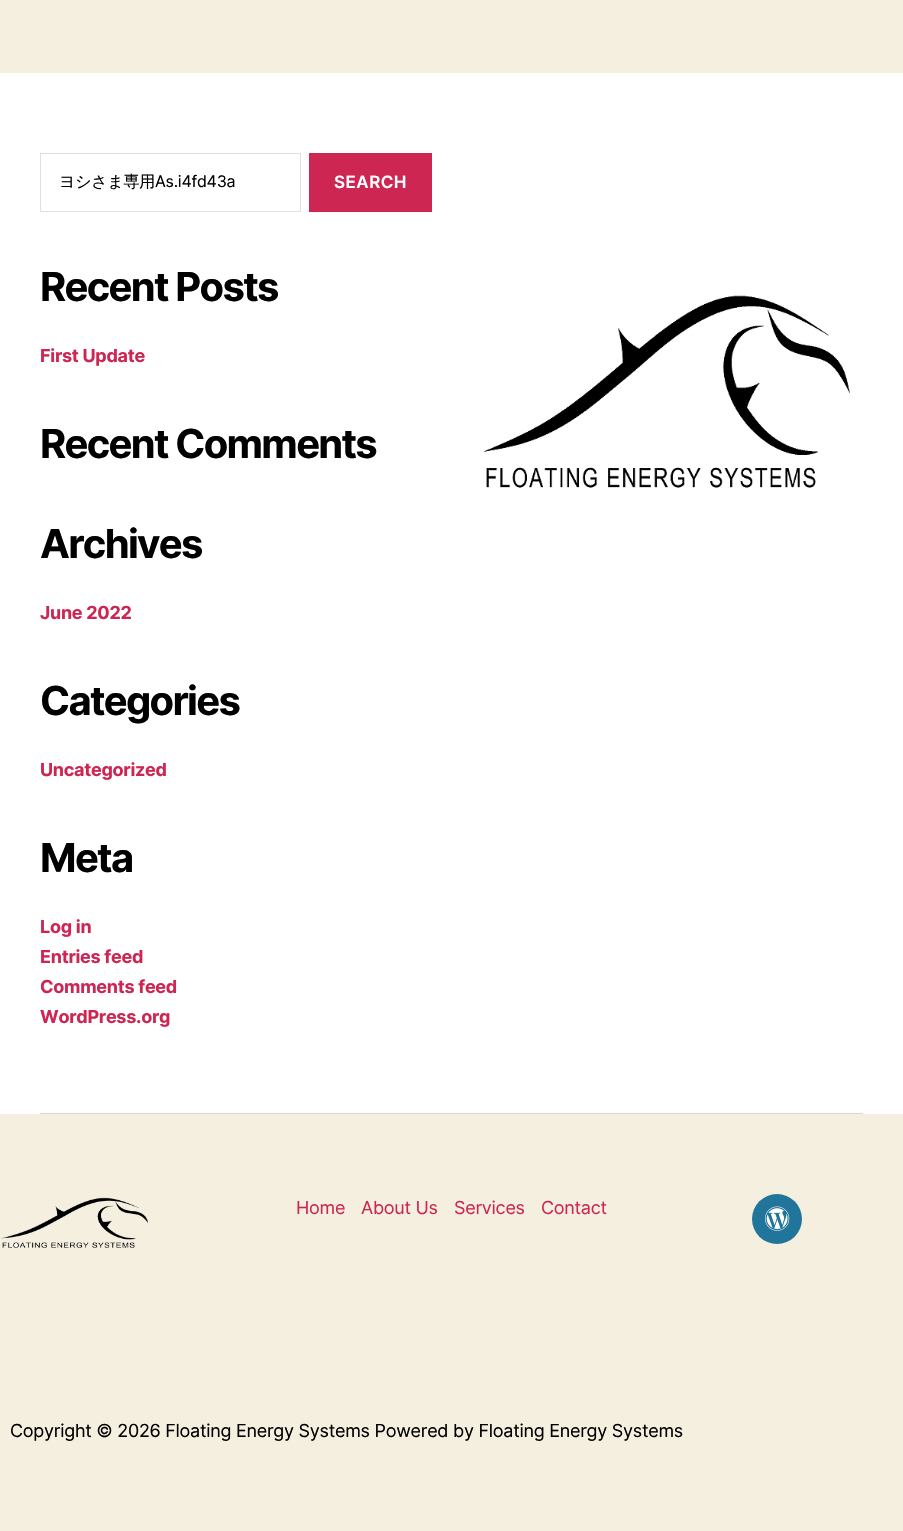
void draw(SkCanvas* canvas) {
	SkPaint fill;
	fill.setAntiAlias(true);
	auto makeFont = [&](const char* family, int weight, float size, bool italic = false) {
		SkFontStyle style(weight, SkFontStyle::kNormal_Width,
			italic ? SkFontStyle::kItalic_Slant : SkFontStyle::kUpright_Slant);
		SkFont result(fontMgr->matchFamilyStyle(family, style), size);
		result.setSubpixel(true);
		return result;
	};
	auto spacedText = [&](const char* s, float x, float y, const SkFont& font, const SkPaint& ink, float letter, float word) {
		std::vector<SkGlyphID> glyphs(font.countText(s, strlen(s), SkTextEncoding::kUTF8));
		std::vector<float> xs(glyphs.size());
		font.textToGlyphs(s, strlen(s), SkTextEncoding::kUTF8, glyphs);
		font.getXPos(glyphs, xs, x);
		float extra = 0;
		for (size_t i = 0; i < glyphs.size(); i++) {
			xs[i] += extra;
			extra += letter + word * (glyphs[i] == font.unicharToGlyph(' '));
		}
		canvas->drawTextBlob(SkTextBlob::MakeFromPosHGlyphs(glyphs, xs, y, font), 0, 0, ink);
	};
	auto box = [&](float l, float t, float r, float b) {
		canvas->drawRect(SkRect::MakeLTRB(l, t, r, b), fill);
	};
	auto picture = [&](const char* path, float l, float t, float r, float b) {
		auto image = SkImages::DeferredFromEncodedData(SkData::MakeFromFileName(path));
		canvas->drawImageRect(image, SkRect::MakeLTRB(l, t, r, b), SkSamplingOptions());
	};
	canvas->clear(0xFFF5EFE0);
	fill.setColor(0xFFFFFFFF);
	box(0, 73, 903, 1114);
	fill.setColor(0xFFDCD7CA);
	box(40, 1113, 863, 1114);
	fill.setStyle(SkPaint::kStroke_Style);
	fill.setStrokeWidth(1);
	fill.setColor(0xFFDEDFDF);
	canvas->drawRect(SkRect::MakeLTRB(40.5f, 153.5f, 300.5f, 211.5f), fill);
	fill.setStyle(SkPaint::kFill_Style);
	fill.setColor(0xFFCD2653);
	box(309, 153, 432, 212);
	picture("image0.png", 484, 295, 850, 488);
	picture("image1.png", 1, 1197, 149, 1248);
	fill.setColor(0xFF21759B);
	canvas->drawCircle(777, 1219, 25, fill);
	picture("image2.png", 765, 1206, 790, 1231);
	auto font1 = makeFont("WenQuanYi Zen Hei", 500, 16);
	fill.setColor(0xFF000000);
	spacedText("ヨシさま専用", 59, 187, font1, fill, -0.25f, 0);
	auto font2 = makeFont("Inter", 400, 16);
	spacedText("As.i4fd43a", 155, 187, font2, fill, -0.25f, 0);
	auto font3 = makeFont("Inter", 600, 17);
	fill.setColor(0xFFFFFFFF);
	spacedText("SEARCH", 334, 188, font3, fill, 0.5f, 0);
	auto font4 = makeFont("Inter", 700, 40);
	fill.setColor(0xFF000000);
	spacedText("Recent Posts", 40, 301, font4, fill, -1.7f, 0);
	auto font5 = makeFont("Inter", 700, 18);
	fill.setColor(0xFFCD2653);
	spacedText("First Update", 40, 362, font5, fill, -0.27f, 0);
	fill.setColor(0xFF000000);
	spacedText("Recent Comments", 40, 458, font4, fill, -1.7f, 0);
	spacedText("Archives", 40, 558, font4, fill, -1.7f, 0);
	fill.setColor(0xFFCD2653);
	spacedText("June 2022", 40, 619, font5, fill, -0.27f, 0);
	fill.setColor(0xFF000000);
	spacedText("Categories", 40, 715, font4, fill, -1.7f, 0);
	fill.setColor(0xFFCD2653);
	spacedText("Uncategorized", 40, 776, font5, fill, -0.27f, 0);
	fill.setColor(0xFF000000);
	spacedText("Meta", 40, 872, font4, fill, -1.7f, 0);
	fill.setColor(0xFFCD2653);
	spacedText("Log in", 40, 933, font5, fill, -0.27f, 0);
	spacedText("Entries feed", 40, 963, font5, fill, -0.27f, 0);
	spacedText("Comments feed", 40, 993, font5, fill, -0.27f, 0);
	spacedText("WordPress.org", 40, 1023, font5, fill, -0.27f, 0);
	auto font6 = makeFont("Inter", 400, 18);
	spacedText("Home", 296, 1214, font6, fill, -0.27f, 0);
	spacedText("About Us", 361, 1214, font6, fill, -0.27f, 0);
	spacedText("Services", 454, 1214, font6, fill, -0.27f, 0);
	spacedText("Contact", 541, 1214, font6, fill, -0.27f, 0);
	fill.setColor(0xFF000000);
	spacedText("Copyright © 2026 Floating Energy Systems Powered by Floating Energy Systems", 10, 1437, font6, fill, -0.27f, 0);
}
